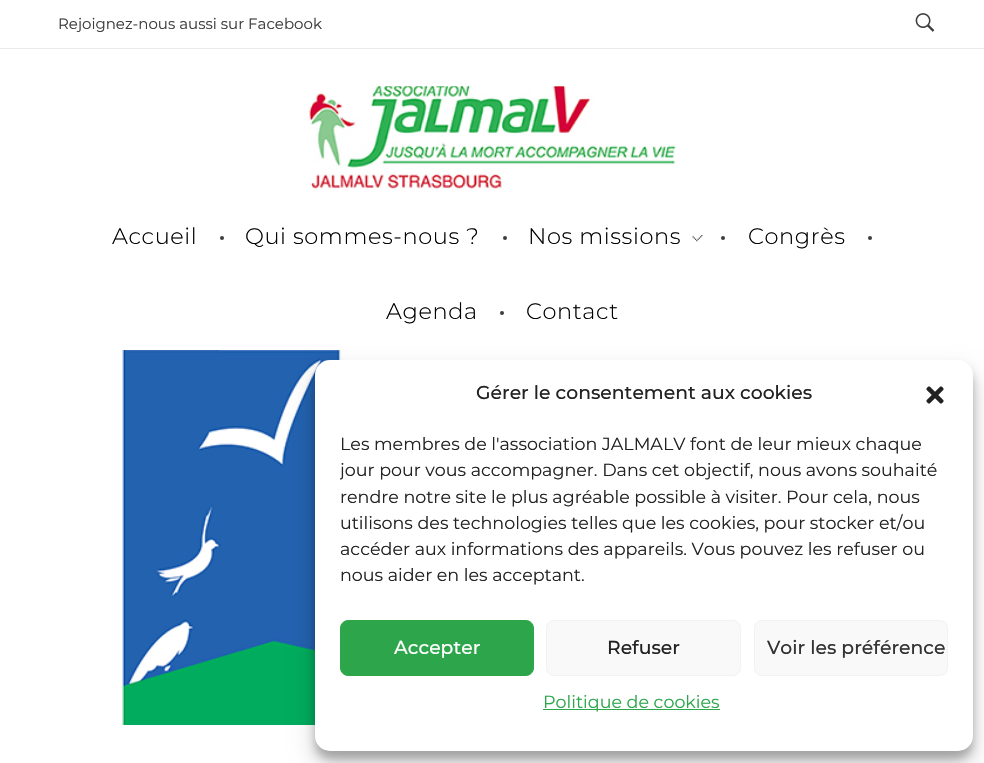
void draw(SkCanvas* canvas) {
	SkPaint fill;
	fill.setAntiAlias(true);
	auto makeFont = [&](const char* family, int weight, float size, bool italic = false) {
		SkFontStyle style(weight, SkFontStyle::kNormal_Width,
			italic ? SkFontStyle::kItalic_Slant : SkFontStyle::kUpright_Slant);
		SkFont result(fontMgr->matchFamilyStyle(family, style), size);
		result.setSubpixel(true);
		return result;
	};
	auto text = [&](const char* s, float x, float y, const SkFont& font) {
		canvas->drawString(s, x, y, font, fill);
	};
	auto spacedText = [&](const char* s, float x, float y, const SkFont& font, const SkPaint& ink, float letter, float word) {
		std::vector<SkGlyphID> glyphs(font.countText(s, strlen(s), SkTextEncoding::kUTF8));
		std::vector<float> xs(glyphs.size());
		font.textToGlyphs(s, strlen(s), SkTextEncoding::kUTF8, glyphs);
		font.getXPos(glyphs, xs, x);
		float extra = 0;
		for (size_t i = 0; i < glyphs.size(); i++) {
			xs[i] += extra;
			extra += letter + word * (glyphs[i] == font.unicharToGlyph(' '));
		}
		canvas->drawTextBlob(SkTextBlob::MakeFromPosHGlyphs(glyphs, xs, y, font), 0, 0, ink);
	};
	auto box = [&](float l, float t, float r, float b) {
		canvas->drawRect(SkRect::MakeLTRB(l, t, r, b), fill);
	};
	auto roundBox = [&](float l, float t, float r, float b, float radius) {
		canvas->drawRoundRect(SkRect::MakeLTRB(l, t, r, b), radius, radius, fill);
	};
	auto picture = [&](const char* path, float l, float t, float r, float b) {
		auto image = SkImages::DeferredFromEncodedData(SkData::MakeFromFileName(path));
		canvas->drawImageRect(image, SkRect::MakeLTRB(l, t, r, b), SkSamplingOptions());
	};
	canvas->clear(0xFFFFFFFF);
	fill.setColor(0xFFEAEAEA);
	box(0, 48, 984, 49);
	picture("image0.png", 915, 13, 935, 32);
	picture("image1.png", 309, 86, 676, 190);
	fill.setColor(0xFF3D3D3D);
	canvas->drawCircle(222, 238, 2, fill);
	canvas->drawCircle(505, 238, 2, fill);
	picture("image2.png", 692, 235, 703, 242);
	canvas->drawCircle(723, 238, 2, fill);
	canvas->drawCircle(870, 238, 2, fill);
	canvas->drawCircle(502, 313, 2, fill);
	picture("image3.png", 122, 350, 341, 725);
	fill.setColor(0x3B000000);
	fill.setMaskFilter(SkMaskFilter::MakeBlur(kNormal_SkBlurStyle, 4));
	canvas->drawRoundRect(SkRect::MakeLTRB(315, 368, 973, 759), 15, 15, fill);
	fill.setMaskFilter(nullptr);
	fill.setColor(0x30000000);
	fill.setMaskFilter(SkMaskFilter::MakeBlur(kNormal_SkBlurStyle, 12.5f));
	canvas->drawRoundRect(SkRect::MakeLTRB(315, 373, 973, 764), 15, 15, fill);
	fill.setMaskFilter(nullptr);
	fill.setColor(0xFFFFFFFF);
	roundBox(315, 360, 973, 751, 15);
	picture("image4.png", 926, 386, 944, 404);
	fill.setColor(0xFF2DA64B);
	canvas->drawRoundRect(SkRect::MakeLTRB(340.5f, 620.5f, 533.5f, 675.5f), 7.5f, 7.5f, fill);
	fill.setStyle(SkPaint::kStroke_Style);
	fill.setStrokeWidth(1);
	canvas->drawRoundRect(SkRect::MakeLTRB(340.5f, 620.5f, 533.5f, 675.5f), 7.5f, 7.5f, fill);
	fill.setStyle(SkPaint::kFill_Style);
	fill.setColor(0xFFF9F9F9);
	canvas->drawRoundRect(SkRect::MakeLTRB(546.5f, 620.5f, 740.5f, 675.5f), 7.5f, 7.5f, fill);
	fill.setStyle(SkPaint::kStroke_Style);
	fill.setColor(0xFFF2F2F2);
	canvas->drawRoundRect(SkRect::MakeLTRB(546.5f, 620.5f, 740.5f, 675.5f), 7.5f, 7.5f, fill);
	fill.setStyle(SkPaint::kFill_Style);
	fill.setColor(0xFFF9F9F9);
	canvas->drawRoundRect(SkRect::MakeLTRB(754.5f, 620.5f, 947.5f, 675.5f), 7.5f, 7.5f, fill);
	fill.setStyle(SkPaint::kStroke_Style);
	fill.setColor(0xFFF2F2F2);
	canvas->drawRoundRect(SkRect::MakeLTRB(754.5f, 620.5f, 947.5f, 675.5f), 7.5f, 7.5f, fill);
	fill.setStyle(SkPaint::kFill_Style);
	fill.setColor(0xFF2DA64B);
	box(543, 709, 720, 710);
	auto font1 = makeFont("Montserrat", 400, 15);
	fill.setColor(0xFF3D3D3D);
	text("Rejoignez-nous aussi sur Facebook", 58, 29, font1);
	auto font2 = makeFont("Montserrat", 300, 22.5f);
	fill.setColor(0xFF000000);
	spacedText("Accueil", 112, 244, font2, fill, 0.6f, 0);
	spacedText("Qui sommes-nous ?", 245, 244, font2, fill, 0.6f, 0);
	spacedText("Nos missions", 528, 244, font2, fill, 0.6f, 0);
	spacedText("Congrès", 748, 244, font2, fill, 0.6f, 0);
	spacedText("Agenda", 386, 319, font2, fill, 0.6f, 0);
	spacedText("Contact", 526, 319, font2, fill, 0.6f, 0);
	auto font3 = makeFont("Montserrat", 500, 18.75f);
	fill.setColor(0xFF222222);
	text("Gérer le consentement aux cookies", 476, 399, font3);
	auto font4 = makeFont("Montserrat", 400, 17.5f);
	text("Les membres de l'association JALMALV font de leur mieux chaque", 340, 450, font4);
	canvas->save();
	canvas->clipRect(SkRect::MakeLTRB(340, 431, 948, 595));
	text("jour pour vous accompagner. Dans cet objectif, nous avons souhaité", 340, 476, font4);
	canvas->restore();
	text("rendre notre site le plus agréable possible à visiter. Pour cela, nous", 340, 503, font4);
	text("utilisons des technologies telles que les cookies, pour stocker et/ou", 340, 529, font4);
	text("accéder aux informations des appareils. Vous pouvez les refuser ou", 340, 555, font4);
	text("nous aider en les acceptant.", 340, 581, font4);
	fill.setColor(0xFFFFFFFF);
	text("Accepter", 394, 654, font3);
	fill.setColor(0xFF222222);
	text("Refuser", 607, 654, font3);
	fill.setColor(0xFF333333);
	text("Voir les préférence", 767, 654, font3);
	fill.setColor(0xFF2DA64B);
	text("Politique de cookies", 543, 708, font4);
}
